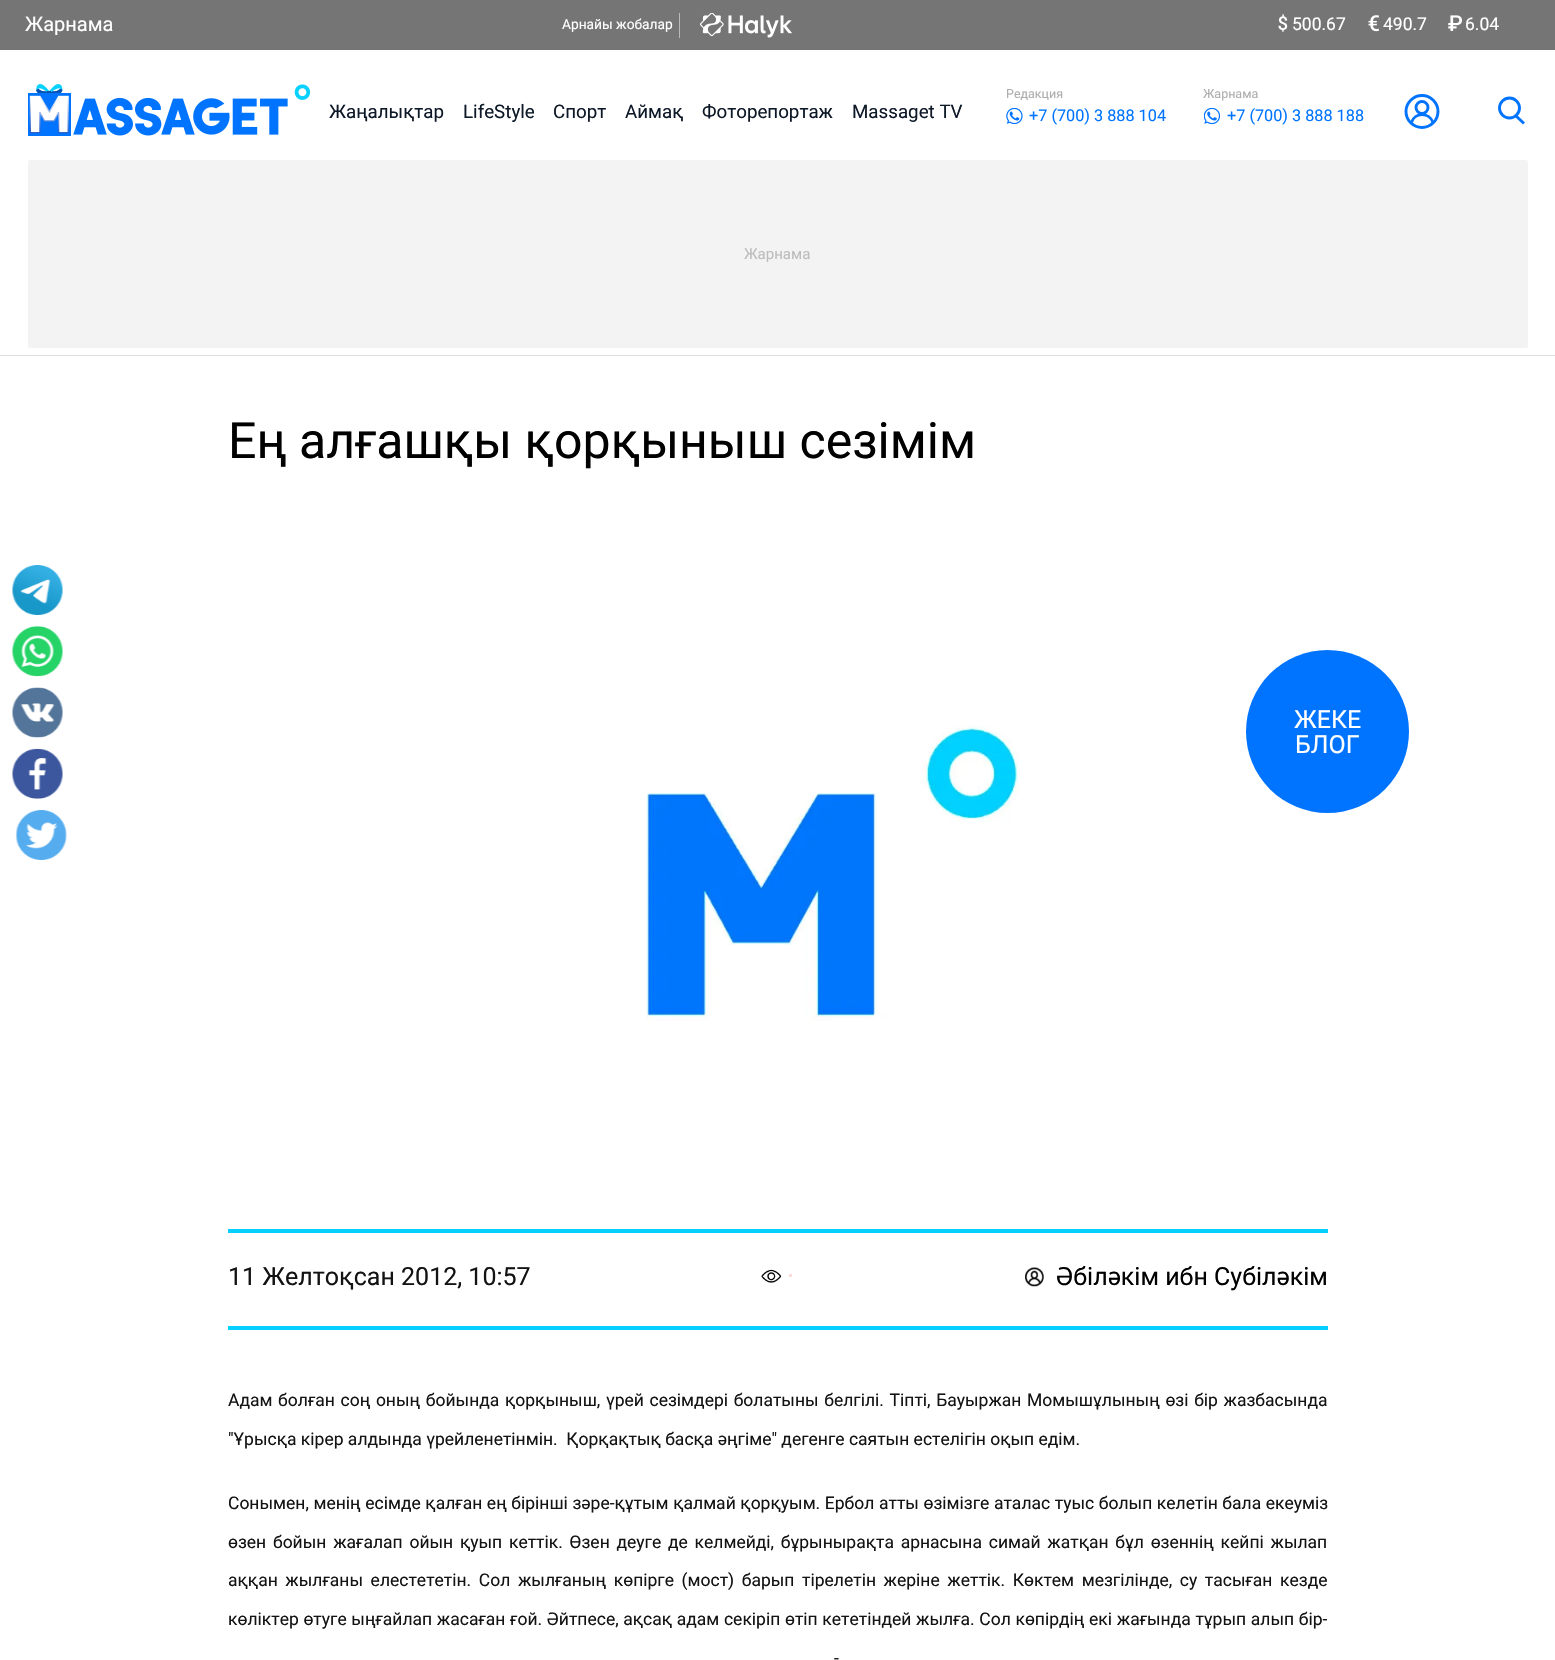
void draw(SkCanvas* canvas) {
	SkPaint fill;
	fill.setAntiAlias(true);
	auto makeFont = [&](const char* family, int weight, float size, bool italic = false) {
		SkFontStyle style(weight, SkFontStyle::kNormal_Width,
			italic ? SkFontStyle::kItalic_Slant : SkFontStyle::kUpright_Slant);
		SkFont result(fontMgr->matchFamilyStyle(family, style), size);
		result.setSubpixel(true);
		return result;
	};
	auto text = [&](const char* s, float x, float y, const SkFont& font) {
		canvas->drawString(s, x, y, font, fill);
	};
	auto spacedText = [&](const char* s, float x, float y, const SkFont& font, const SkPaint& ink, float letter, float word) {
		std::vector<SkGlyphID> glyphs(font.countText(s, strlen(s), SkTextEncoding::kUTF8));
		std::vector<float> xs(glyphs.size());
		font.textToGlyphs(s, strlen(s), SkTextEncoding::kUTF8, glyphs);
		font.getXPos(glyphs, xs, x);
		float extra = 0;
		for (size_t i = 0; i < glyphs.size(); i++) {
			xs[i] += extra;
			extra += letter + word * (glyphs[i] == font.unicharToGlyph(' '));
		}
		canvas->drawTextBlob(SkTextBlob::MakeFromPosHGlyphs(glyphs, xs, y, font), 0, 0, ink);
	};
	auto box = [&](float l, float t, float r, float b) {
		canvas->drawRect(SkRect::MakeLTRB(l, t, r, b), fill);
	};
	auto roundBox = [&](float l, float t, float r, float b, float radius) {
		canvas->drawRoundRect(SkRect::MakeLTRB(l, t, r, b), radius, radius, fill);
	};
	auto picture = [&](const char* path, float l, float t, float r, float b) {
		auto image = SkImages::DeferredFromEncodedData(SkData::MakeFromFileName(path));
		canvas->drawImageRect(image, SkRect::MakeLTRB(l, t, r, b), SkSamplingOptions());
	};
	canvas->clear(0xFFFFFFFF);
	fill.setColor(0xFFDEDEDE);
	box(0, 355, 1555, 356);
	fill.setColor(0xFF757575);
	box(0, 0, 1555, 50);
	fill.setColor(0xFFBABABA);
	box(679, 13, 680, 38);
	picture("image0.png", 700, 13, 792, 38);
	picture("image1.png", 1278, 14, 1288, 32);
	picture("image2.png", 1368, 15, 1379, 32);
	picture("image3.png", 1448, 15, 1462, 31);
	picture("image4.png", 28, 84, 311, 136);
	picture("image5.png", 1006, 108, 1023, 124);
	picture("image6.png", 1204, 108, 1220, 124);
	fill.setStyle(SkPaint::kStroke_Style);
	fill.setStrokeWidth(2.9f);
	fill.setColor(0xFF0074FF);
	canvas->drawCircle(1422, 111.5f, 16, fill);
	canvas->drawPath(SkPathBuilder().moveTo(1433, 122.5f).cubicTo(1429.5f, 112, 1414.5f, 112, 1411.5f, 122.5f).detach(), fill);
	canvas->drawCircle(1422, 107.5f, 6, fill);
	canvas->drawCircle(1509.5f, 108, 10, fill);
	canvas->drawPath(SkPathBuilder().moveTo(1515, 115).lineTo(1524, 123.5f).detach(), fill);
	fill.setStyle(SkPaint::kFill_Style);
	fill.setColor(0xFFF3F3F3);
	roundBox(28, 160, 1528, 348, 2.5f);
	picture("image7.png", 646, 725, 1019, 1021);
	fill.setColor(0xFF0074FF);
	canvas->drawCircle(1327.5f, 731.5f, 81.5f, fill);
	fill.setColor(0xFF04CFFD);
	box(228, 1229, 1328, 1233);
	box(228, 1326, 1328, 1330);
	picture("image8.png", 761, 1269, 782, 1283);
	picture("image9.png", 1025, 1267, 1044, 1287);
	picture("image10.png", 12, 565, 63, 615);
	picture("image11.png", 12, 626, 63, 677);
	picture("image12.png", 12, 687, 63, 738);
	picture("image13.png", 12, 748, 63, 799);
	picture("image14.png", 15, 810, 67, 860);
	auto font1 = makeFont("Roboto", 400, 20);
	fill.setColor(0xFFFFFFFF);
	text("Жарнама", 25, 31, font1);
	auto font2 = makeFont("Roboto", 400, 13.75f);
	text("Арнайы жобалар", 562, 29, font2);
	auto font3 = makeFont("Roboto", 400, 17.5f);
	text("500.67", 1292, 30, font3);
	text("490.7", 1383, 30, font3);
	text("6.04", 1465, 30, font3);
	auto font4 = makeFont("Roboto", 400, 18.75f);
	fill.setColor(0xFF0E1928);
	text("Жаңалықтар", 329, 118, font4);
	text("LifeStyle", 463, 118, font4);
	text("Спорт", 553, 118, font4);
	text("Аймақ", 625, 118, font4);
	text("Фоторепортаж", 702, 118, font4);
	text("Massaget TV", 852, 118, font4);
	auto font5 = makeFont("Roboto", 400, 12.5f);
	fill.setColor(0xFFADADAD);
	text("Редакция", 1006, 98, font5);
	auto font6 = makeFont("Roboto", 400, 16.25f);
	fill.setColor(0xFF0074FF);
	text("+7 (700) 3 888 104", 1029, 121, font6);
	fill.setColor(0xFFADADAD);
	text("Жарнама", 1203, 98, font5);
	fill.setColor(0xFF0074FF);
	text("+7 (700) 3 888 188", 1227, 121, font6);
	auto font7 = makeFont("Roboto", 400, 15);
	fill.setColor(0xFFBDBDBD);
	text("Жарнама", 744, 259, font7);
	auto font8 = makeFont("Roboto", 400, 50);
	fill.setColor(0xFF000000);
	text("Ең алғашқы қорқыныш сезімім", 228, 458, font8);
	auto font9 = makeFont("Roboto", 400, 25);
	fill.setColor(0xFFFFFFFF);
	text("ЖЕКЕ", 1294, 728, font9);
	text("БЛОГ", 1295, 753, font9);
	fill.setColor(0xFF131313);
	text("11 Желтоқсан 2012, 10:57", 228, 1285, font9);
	fill.setColor(0xFFFFD6D6);
	text("•", 788, 1281, font7);
	fill.setColor(0xFF000000);
	text("Әбіләкім ибн Субіләкім", 1056, 1285, font9);
	fill.setColor(0xFF131313);
	spacedText("Адам болған соң оның бойында қорқыныш, үрей сезімдері болатыны белгілі. Тіпті, Бауыржан Момышұлының өзі бір жазбасында", 228, 1406, font3, fill, 0, 1.3f);
	text("\"Ұрысқа кірер алдында үрейленетінмін.  Қорқақтық басқа әңгіме\" дегенге саятын естелігін оқып едім.", 228, 1445, font3);
	spacedText("Сонымен, менің есімде қалған ең бірінші зәре-құтым қалмай қорқуым. Ербол атты өзімізге аталас туыс болып келетін бала екеуміз", 228, 1509, font3, fill, 0, 0.25f);
	spacedText("өзен бойын жағалап ойын қуып кеттік. Өзен деуге де келмейді, бұрынырақта арнасына симай жатқан бұл өзеннің кейпі жылап", 228, 1548, font3, fill, 0, 2.4f);
	spacedText("аққан жылғаны елестететін. Сол жылғаның көпірге (мост) барып тірелетін жеріне жеттік. Көктем мезгілінде, су тасыған кезде", 228, 1586, font3, fill, 0, 3.25f);
	spacedText("көліктер өтуге ыңғайлап жасаған ғой. Әйтпесе, ақсақ адам секіріп өтіп кететіндей жылға. Сол көпірдің екі жағында тұрып алып бір-", 228, 1625, font3, fill, 0, 0.3f);
	spacedText("-", 834, 1664, font3, fill, 0, 1);
}
